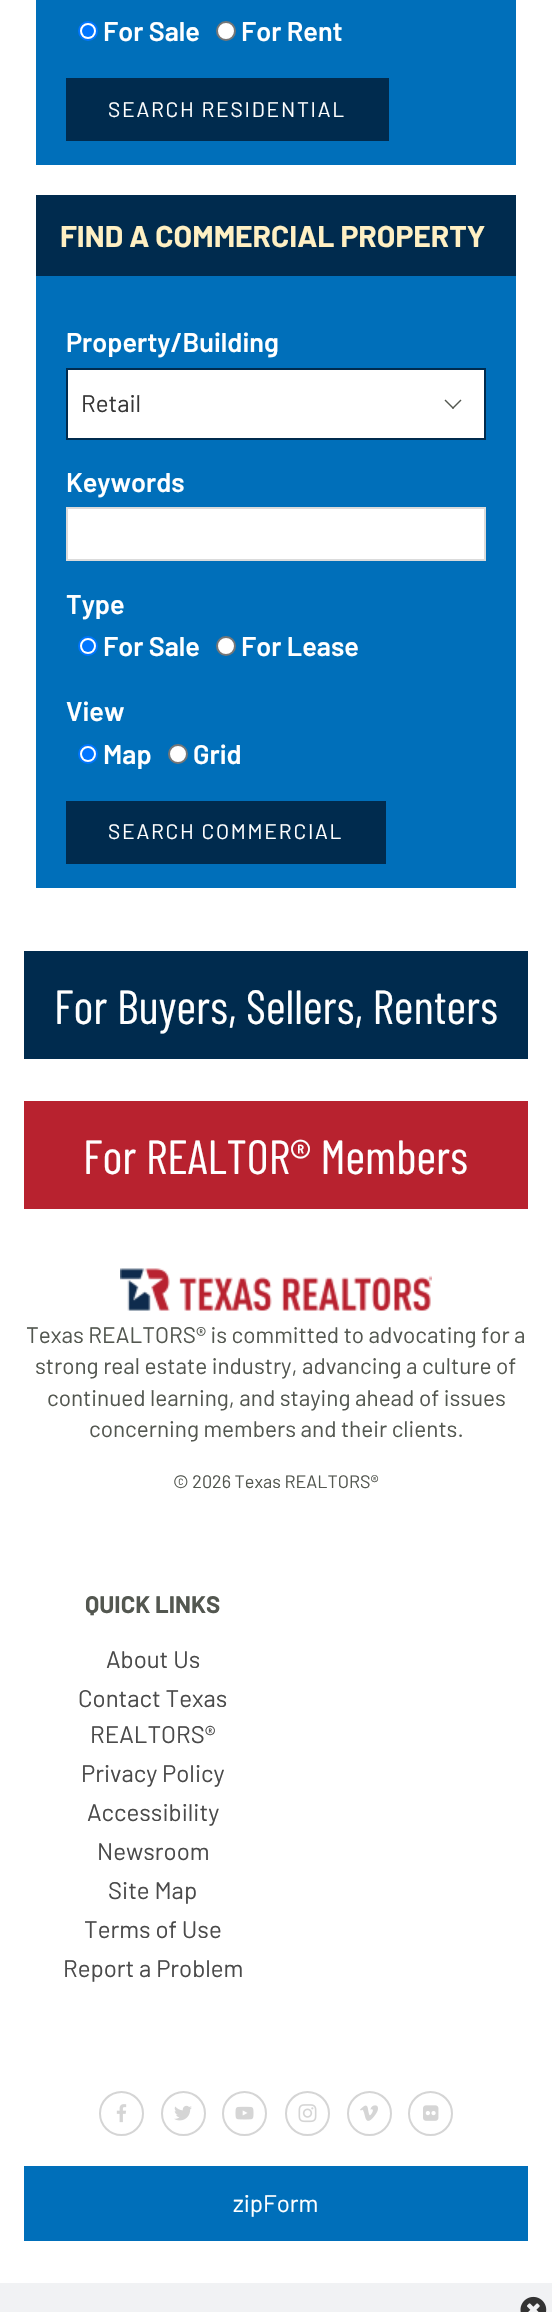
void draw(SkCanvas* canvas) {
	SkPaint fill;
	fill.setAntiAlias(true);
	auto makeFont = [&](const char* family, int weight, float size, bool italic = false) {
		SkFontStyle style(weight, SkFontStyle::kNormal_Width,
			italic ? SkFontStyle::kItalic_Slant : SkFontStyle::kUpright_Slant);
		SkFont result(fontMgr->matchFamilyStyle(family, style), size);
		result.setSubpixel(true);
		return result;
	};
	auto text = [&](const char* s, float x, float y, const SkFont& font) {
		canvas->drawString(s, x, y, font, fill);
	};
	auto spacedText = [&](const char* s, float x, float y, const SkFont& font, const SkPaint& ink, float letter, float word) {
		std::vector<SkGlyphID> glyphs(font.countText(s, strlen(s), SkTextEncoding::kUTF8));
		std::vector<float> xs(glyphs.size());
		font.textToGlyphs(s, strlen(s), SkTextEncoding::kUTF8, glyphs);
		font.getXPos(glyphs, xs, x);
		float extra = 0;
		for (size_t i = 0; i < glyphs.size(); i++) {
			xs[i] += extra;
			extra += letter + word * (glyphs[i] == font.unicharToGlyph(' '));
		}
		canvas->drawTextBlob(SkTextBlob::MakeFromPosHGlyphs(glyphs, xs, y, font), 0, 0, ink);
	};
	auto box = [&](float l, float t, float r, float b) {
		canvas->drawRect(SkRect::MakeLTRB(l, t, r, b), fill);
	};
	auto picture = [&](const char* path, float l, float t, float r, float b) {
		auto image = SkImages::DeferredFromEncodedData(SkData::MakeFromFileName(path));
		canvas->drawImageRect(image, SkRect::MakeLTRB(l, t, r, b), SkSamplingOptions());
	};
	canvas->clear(0xFFFFFFFF);
	fill.setColor(0xFF006FBA);
	box(36, 0, 516, 165);
	fill.setColor(0xFFFFFFFF);
	canvas->drawCircle(88, 31, 9, fill);
	fill.setStyle(SkPaint::kStroke_Style);
	fill.setStrokeWidth(2);
	fill.setColor(0xFF0075FF);
	canvas->drawCircle(88, 31, 9, fill);
	fill.setStyle(SkPaint::kFill_Style);
	canvas->drawCircle(88, 31, 6, fill);
	fill.setColor(0xFFFFFFFF);
	canvas->drawCircle(226, 31, 9, fill);
	fill.setStyle(SkPaint::kStroke_Style);
	fill.setColor(0xFF767676);
	canvas->drawCircle(226, 31, 9, fill);
	fill.setStyle(SkPaint::kFill_Style);
	fill.setColor(0xFF002B4E);
	box(66, 78, 389, 141);
	fill.setColor(0xFF006FBA);
	box(36, 276, 516, 888);
	fill.setColor(0xFF002B4E);
	box(36, 195, 516, 276);
	fill.setColor(0xFFFFFFFF);
	canvas->drawRect(SkRect::MakeLTRB(67, 369, 485, 439), fill);
	fill.setStyle(SkPaint::kStroke_Style);
	fill.setColor(0xFF002B4E);
	canvas->drawRect(SkRect::MakeLTRB(67, 369, 485, 439), fill);
	fill.setStyle(SkPaint::kFill_Style);
	fill.setColor(0xFF535750);
	canvas->drawPath(SkPathBuilder().moveTo(452, 408).lineTo(460.5f, 399.5f).lineTo(461.5f, 400.5f).lineTo(453, 409).close().detach(), fill);
	canvas->drawPath(SkPathBuilder().moveTo(444.5f, 400.5f).lineTo(445.5f, 399.5f).lineTo(454, 408).lineTo(453, 409).close().detach(), fill);
	fill.setColor(0xFFFFFFFF);
	canvas->drawRect(SkRect::MakeLTRB(67, 508, 485, 560), fill);
	fill.setStyle(SkPaint::kStroke_Style);
	fill.setColor(0xFFDBDBDB);
	canvas->drawRect(SkRect::MakeLTRB(67, 508, 485, 560), fill);
	fill.setStyle(SkPaint::kFill_Style);
	fill.setColor(0xFFFFFFFF);
	canvas->drawCircle(88, 646, 9, fill);
	fill.setStyle(SkPaint::kStroke_Style);
	fill.setColor(0xFF0075FF);
	canvas->drawCircle(88, 646, 9, fill);
	fill.setStyle(SkPaint::kFill_Style);
	canvas->drawCircle(88, 646, 6, fill);
	fill.setColor(0xFFFFFFFF);
	canvas->drawCircle(226, 646, 9, fill);
	fill.setStyle(SkPaint::kStroke_Style);
	fill.setColor(0xFF767676);
	canvas->drawCircle(226, 646, 9, fill);
	fill.setStyle(SkPaint::kFill_Style);
	fill.setColor(0xFFFFFFFF);
	canvas->drawCircle(88, 754, 9, fill);
	fill.setStyle(SkPaint::kStroke_Style);
	fill.setColor(0xFF0075FF);
	canvas->drawCircle(88, 754, 9, fill);
	fill.setStyle(SkPaint::kFill_Style);
	canvas->drawCircle(88, 754, 6, fill);
	fill.setColor(0xFFFFFFFF);
	canvas->drawCircle(178, 754, 9, fill);
	fill.setStyle(SkPaint::kStroke_Style);
	fill.setColor(0xFF767676);
	canvas->drawCircle(178, 754, 9, fill);
	fill.setStyle(SkPaint::kFill_Style);
	fill.setColor(0xFF002B4E);
	box(66, 801, 386, 864);
	box(24, 951, 528, 1059);
	fill.setColor(0xFFB8222F);
	box(24, 1101, 528, 1209);
	picture("image0.png", 120, 1268, 432, 1311);
	fill.setStyle(SkPaint::kStroke_Style);
	fill.setColor(0xFFD5D5D5);
	canvas->drawCircle(121.5f, 2113.5f, 21.5f, fill);
	picture("image1.png", 116, 2104, 127, 2123);
	canvas->drawCircle(183.5f, 2113.5f, 21.5f, fill);
	picture("image2.png", 174, 2105, 192, 2121);
	canvas->drawCircle(244.5f, 2113.5f, 21.5f, fill);
	picture("image3.png", 235, 2106, 254, 2120);
	canvas->drawCircle(307.5f, 2113.5f, 21.5f, fill);
	picture("image4.png", 298, 2104, 317, 2123);
	canvas->drawCircle(369.5f, 2113.5f, 21.5f, fill);
	picture("image5.png", 360, 2105, 378, 2121);
	canvas->drawCircle(430.5f, 2113.5f, 21.5f, fill);
	picture("image6.png", 423, 2105, 439, 2121);
	fill.setStyle(SkPaint::kFill_Style);
	fill.setColor(0xFF006FBA);
	box(24, 2166, 528, 2241);
	fill.setColor(0xFFF1F2F4);
	box(0, 2283, 552, 2312);
	picture("image7.png", 520, 2296, 547, 2312);
	auto font1 = makeFont("Barlow", 600, 27);
	fill.setColor(0xFFFFFFFF);
	text("For Sale", 103, 41, font1);
	text("For Rent", 241, 41, font1);
	auto font2 = makeFont("Barlow", 400, 21);
	spacedText("SEARCH RESIDENTIAL", 108, 117, font2, fill, 1.75f, 0);
	auto font3 = makeFont("Barlow", 700, 30);
	fill.setColor(0xFFFFF0C3);
	text("FIND A COMMERCIAL PROPERTY", 60, 247, font3);
	fill.setColor(0xFFFFFFFF);
	text("Property/Building", 66, 352, font1);
	auto font4 = makeFont("Barlow", 400, 24);
	fill.setColor(0xFF363636);
	text("Retail", 81, 412, font4);
	fill.setColor(0xFFFFFFFF);
	text("Keywords", 66, 492, font1);
	text("Type", 66, 614, font1);
	text("For Sale", 103, 656, font1);
	text("For Lease", 241, 656, font1);
	text("View", 66, 721, font1);
	text("Map", 103, 764, font1);
	text("Grid", 193, 764, font1);
	spacedText("SEARCH COMMERCIAL", 108, 839, font2, fill, 1.75f, 0);
	auto font5 = makeFont("Barlow Condensed", 400, 48);
	text("For Buyers, Sellers, Renters", 54, 1024, font5);
	text("For REALTOR® Members", 83, 1174, font5);
	auto font6 = makeFont("Barlow", 400, 22.5f);
	fill.setColor(0xFF535750);
	text("Texas REALTORS® is committed to advocating for a", 26, 1343, font6);
	text("strong real estate industry, advancing a culture of", 35, 1374, font6);
	text("continued learning, and staying ahead of issues", 47, 1406, font6);
	text("concerning members and their clients.", 89, 1437, font6);
	auto font7 = makeFont("Barlow", 400, 18);
	text("© 2026 Texas REALTORS®", 173, 1488, font7);
	auto font8 = makeFont("Barlow", 700, 24);
	text("QUICK LINKS", 85, 1613, font8);
	fill.setColor(0xFF4A4A4A);
	text("About Us", 106, 1668, font4);
	text("Contact Texas", 78, 1707, font4);
	text("REALTORS®", 90, 1743, font4);
	text("Privacy Policy", 81, 1782, font4);
	text("Accessibility", 87, 1821, font4);
	text("Newsroom", 97, 1860, font4);
	text("Site Map", 108, 1899, font4);
	text("Terms of Use", 84, 1938, font4);
	text("Report a Problem", 63, 1977, font4);
	fill.setColor(0xFFFFFFFF);
	text("zipForm", 233, 2212, font4);
}
